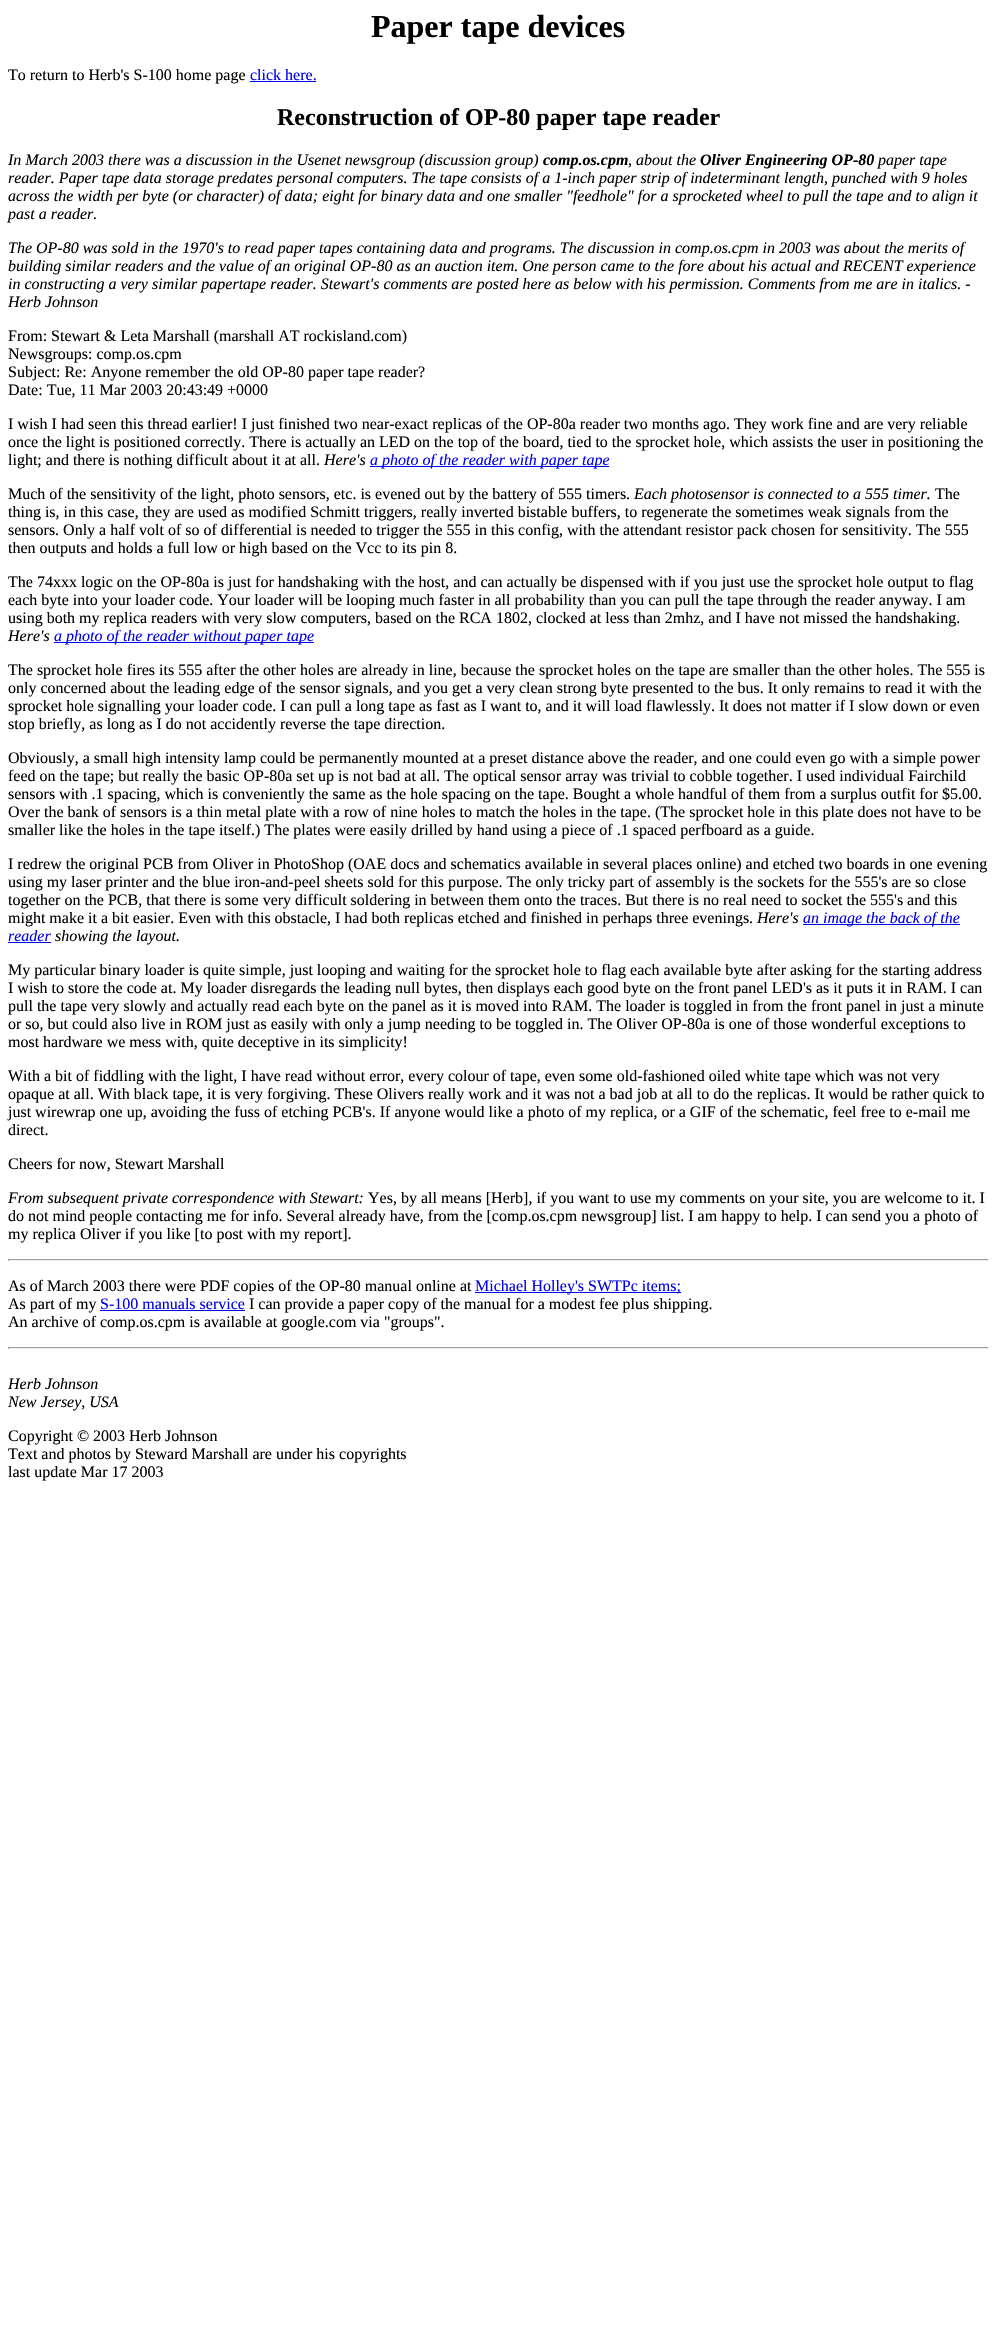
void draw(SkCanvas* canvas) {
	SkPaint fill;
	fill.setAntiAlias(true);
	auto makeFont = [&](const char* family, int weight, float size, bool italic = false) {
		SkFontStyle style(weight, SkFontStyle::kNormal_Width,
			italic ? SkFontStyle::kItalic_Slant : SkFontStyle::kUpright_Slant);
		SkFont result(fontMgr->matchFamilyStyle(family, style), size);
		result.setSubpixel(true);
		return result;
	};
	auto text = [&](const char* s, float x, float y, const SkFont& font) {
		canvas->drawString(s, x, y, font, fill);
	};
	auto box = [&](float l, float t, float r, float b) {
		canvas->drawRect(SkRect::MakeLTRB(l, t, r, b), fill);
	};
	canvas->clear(0xFFFFFFFF);
	fill.setColor(0xFF0000EE);
	box(250, 81, 316, 82);
	box(370, 466, 609, 467);
	box(54, 642, 314, 643);
	box(803, 924, 960, 925);
	box(8, 942, 51, 943);
	fill.setColor(0xFF9F9F9F);
	box(8, 1259, 989, 1260);
	fill.setColor(0xFFEEEEEE);
	box(988, 1259, 989, 1261);
	box(8, 1260, 989, 1261);
	fill.setColor(0xFF9F9F9F);
	box(8, 1259, 9, 1261);
	fill.setColor(0xFF0000EE);
	box(475, 1292, 681, 1293);
	box(100, 1310, 245, 1311);
	fill.setColor(0xFF9F9F9F);
	box(8, 1347, 989, 1348);
	fill.setColor(0xFFEEEEEE);
	box(988, 1347, 989, 1349);
	box(8, 1348, 989, 1349);
	fill.setColor(0xFF9F9F9F);
	box(8, 1347, 9, 1349);
	auto font1 = makeFont("Liberation Serif", 700, 32);
	fill.setColor(0xFF000000);
	text("Paper tape devices", 371, 37, font1);
	auto font2 = makeFont("Liberation Serif", 400, 16);
	text("To return to Herb's S-100 home page", 8, 80, font2);
	fill.setColor(0xFF0000EE);
	text("click here.", 250, 80, font2);
	auto font3 = makeFont("Liberation Serif", 700, 24);
	fill.setColor(0xFF000000);
	text("Reconstruction of OP-80 paper tape reader", 277, 125, font3);
	auto font4 = makeFont("Liberation Serif", 400, 16, true);
	text("In March 2003 there was a discussion in the Usenet newsgroup (discussion group)", 8, 165, font4);
	auto font5 = makeFont("Liberation Serif", 700, 16, true);
	text("comp.os.cpm", 543, 165, font5);
	text(", about the", 628, 165, font4);
	text("Oliver Engineering OP-80", 700, 165, font5);
	text("paper tape", 878, 165, font4);
	text("reader. Paper tape data storage predates personal computers. The tape consists of a 1-inch paper strip of indeterminant length, punched with 9 holes", 8, 183, font4);
	text("across the width per byte (or character) of data; eight for binary data and one smaller \"feedhole\" for a sprocketed wheel to pull the tape and to align it", 8, 201, font4);
	text("past a reader.", 8, 219, font4);
	text("The OP-80 was sold in the 1970's to read paper tapes containing data and programs. The discussion in comp.os.cpm in 2003 was about the merits of", 8, 253, font4);
	text("building similar readers and the value of an original OP-80 as an auction item. One person came to the fore about his actual and RECENT experience", 8, 271, font4);
	text("in constructing a very similar papertape reader. Stewart's comments are posted here as below with his permission. Comments from me are in italics. -", 8, 289, font4);
	text("Herb Johnson", 8, 307, font4);
	text("From: Stewart & Leta Marshall (marshall AT rockisland.com)", 8, 341, font2);
	text("Newsgroups: comp.os.cpm", 8, 359, font2);
	text("Subject: Re: Anyone remember the old OP-80 paper tape reader?", 8, 377, font2);
	text("Date: Tue, 11 Mar 2003 20:43:49 +0000", 8, 395, font2);
	text("I wish I had seen this thread earlier! I just finished two near-exact replicas of the OP-80a reader two months ago. They work fine and are very reliable", 8, 429, font2);
	text("once the light is positioned correctly. There is actually an LED on the top of the board, tied to the sprocket hole, which assists the user in positioning the", 8, 447, font2);
	text("light; and there is nothing difficult about it at all.", 8, 465, font2);
	text("Here's", 324, 465, font4);
	fill.setColor(0xFF0000EE);
	text("a photo of the reader with paper tape", 370, 465, font4);
	fill.setColor(0xFF000000);
	text("Much of the sensitivity of the light, photo sensors, etc. is evened out by the battery of 555 timers.", 8, 499, font2);
	text("Each photosensor is connected to a 555 timer.", 634, 499, font4);
	text("The", 935, 499, font2);
	text("thing is, in this case, they are used as modified Schmitt triggers, really inverted bistable buffers, to regenerate the sometimes weak signals from the", 8, 517, font2);
	text("sensors. Only a half volt of so of differential is needed to trigger the 555 in this config, with the attendant resistor pack chosen for sensitivity. The 555", 8, 535, font2);
	text("then outputs and holds a full low or high based on the Vcc to its pin 8.", 8, 553, font2);
	text("The 74xxx logic on the OP-80a is just for handshaking with the host, and can actually be dispensed with if you just use the sprocket hole output to flag", 8, 587, font2);
	text("each byte into your loader code. Your loader will be looping much faster in all probability than you can pull the tape through the reader anyway. I am", 8, 605, font2);
	text("using both my replica readers with very slow computers, based on the RCA 1802, clocked at less than 2mhz, and I have not missed the handshaking.", 8, 623, font2);
	text("Here's", 8, 641, font4);
	fill.setColor(0xFF0000EE);
	text("a photo of the reader without paper tape", 54, 641, font4);
	fill.setColor(0xFF000000);
	text("The sprocket hole fires its 555 after the other holes are already in line, because the sprocket holes on the tape are smaller than the other holes. The 555 is", 8, 675, font2);
	text("only concerned about the leading edge of the sensor signals, and you get a very clean strong byte presented to the bus. It only remains to read it with the", 8, 693, font2);
	text("sprocket hole signalling your loader code. I can pull a long tape as fast as I want to, and it will load flawlessly. It does not matter if I slow down or even", 8, 711, font2);
	text("stop briefly, as long as I do not accidently reverse the tape direction.", 8, 729, font2);
	text("Obviously, a small high intensity lamp could be permanently mounted at a preset distance above the reader, and one could even go with a simple power", 8, 763, font2);
	text("feed on the tape; but really the basic OP-80a set up is not bad at all. The optical sensor array was trivial to cobble together. I used individual Fairchild", 8, 781, font2);
	text("sensors with .1 spacing, which is conveniently the same as the hole spacing on the tape. Bought a whole handful of them from a surplus outfit for $5.00.", 8, 799, font2);
	text("Over the bank of sensors is a thin metal plate with a row of nine holes to match the holes in the tape. (The sprocket hole in this plate does not have to be", 8, 817, font2);
	text("smaller like the holes in the tape itself.) The plates were easily drilled by hand using a piece of .1 spaced perfboard as a guide.", 8, 835, font2);
	text("I redrew the original PCB from Oliver in PhotoShop (OAE docs and schematics available in several places online) and etched two boards in one evening", 8, 869, font2);
	text("using my laser printer and the blue iron-and-peel sheets sold for this purpose. The only tricky part of assembly is the sockets for the 555's are so close", 8, 887, font2);
	text("together on the PCB, that there is some very difficult soldering in between them onto the traces. But there is no real need to socket the 555's and this", 8, 905, font2);
	text("might make it a bit easier. Even with this obstacle, I had both replicas etched and finished in perhaps three evenings.", 8, 923, font2);
	text("Here's", 757, 923, font4);
	fill.setColor(0xFF0000EE);
	text("an image the back of the", 803, 923, font4);
	text("reader", 8, 941, font4);
	fill.setColor(0xFF000000);
	text("showing the layout.", 55, 941, font4);
	text("My particular binary loader is quite simple, just looping and waiting for the sprocket hole to flag each available byte after asking for the starting address", 8, 975, font2);
	text("I wish to store the code at. My loader disregards the leading null bytes, then displays each good byte on the front panel LED's as it puts it in RAM. I can", 8, 993, font2);
	text("pull the tape very slowly and actually read each byte on the panel as it is moved into RAM. The loader is toggled in from the front panel in just a minute", 8, 1011, font2);
	text("or so, but could also live in ROM just as easily with only a jump needing to be toggled in. The Oliver OP-80a is one of those wonderful exceptions to", 8, 1029, font2);
	text("most hardware we mess with, quite deceptive in its simplicity!", 8, 1047, font2);
	text("With a bit of fiddling with the light, I have read without error, every colour of tape, even some old-fashioned oiled white tape which was not very", 8, 1081, font2);
	text("opaque at all. With black tape, it is very forgiving. These Olivers really work and it was not a bad job at all to do the replicas. It would be rather quick to", 8, 1099, font2);
	text("just wirewrap one up, avoiding the fuss of etching PCB's. If anyone would like a photo of my replica, or a GIF of the schematic, feel free to e-mail me", 8, 1117, font2);
	text("direct.", 8, 1135, font2);
	text("Cheers for now, Stewart Marshall", 8, 1169, font2);
	text("From subsequent private correspondence with Stewart:", 8, 1203, font4);
	text("Yes, by all means [Herb], if you want to use my comments on your site, you are welcome to it. I", 368, 1203, font2);
	text("do not mind people contacting me for info. Several already have, from the [comp.os.cpm newsgroup] list. I am happy to help. I can send you a photo of", 8, 1221, font2);
	text("my replica Oliver if you like [to post with my report].", 8, 1239, font2);
	text("As of March 2003 there were PDF copies of the OP-80 manual online at", 8, 1291, font2);
	fill.setColor(0xFF0000EE);
	text("Michael Holley's SWTPc items;", 475, 1291, font2);
	fill.setColor(0xFF000000);
	text("As part of my", 8, 1309, font2);
	fill.setColor(0xFF0000EE);
	text("S-100 manuals service", 100, 1309, font2);
	fill.setColor(0xFF000000);
	text("I can provide a paper copy of the manual for a modest fee plus shipping.", 249, 1309, font2);
	text("An archive of comp.os.cpm is available at google.com via \"groups\".", 8, 1327, font2);
	text("Herb Johnson", 8, 1389, font4);
	text("New Jersey, USA", 8, 1407, font4);
	text("Copyright © 2003 Herb Johnson", 8, 1441, font2);
	text("Text and photos by Steward Marshall are under his copyrights", 8, 1459, font2);
	text("last update Mar 17 2003", 8, 1477, font2);
}
